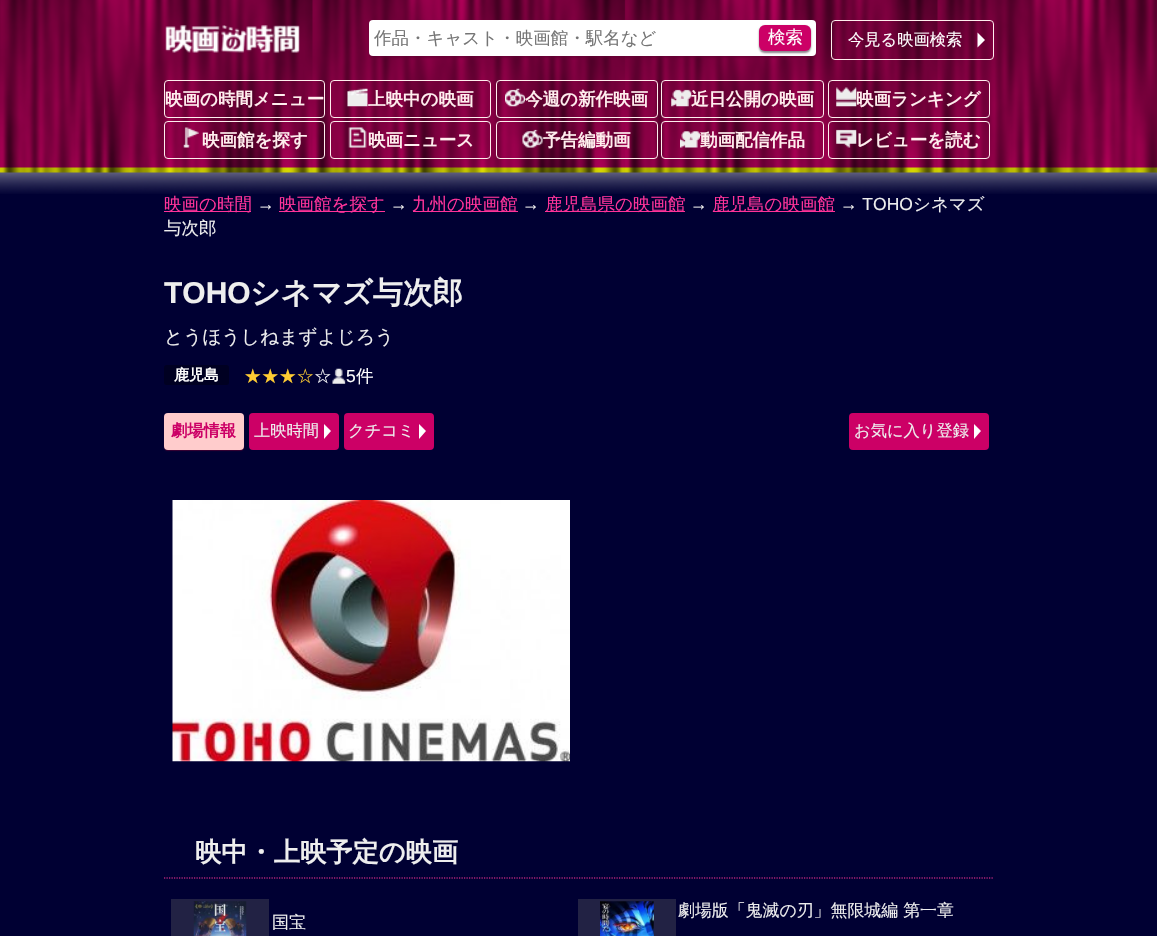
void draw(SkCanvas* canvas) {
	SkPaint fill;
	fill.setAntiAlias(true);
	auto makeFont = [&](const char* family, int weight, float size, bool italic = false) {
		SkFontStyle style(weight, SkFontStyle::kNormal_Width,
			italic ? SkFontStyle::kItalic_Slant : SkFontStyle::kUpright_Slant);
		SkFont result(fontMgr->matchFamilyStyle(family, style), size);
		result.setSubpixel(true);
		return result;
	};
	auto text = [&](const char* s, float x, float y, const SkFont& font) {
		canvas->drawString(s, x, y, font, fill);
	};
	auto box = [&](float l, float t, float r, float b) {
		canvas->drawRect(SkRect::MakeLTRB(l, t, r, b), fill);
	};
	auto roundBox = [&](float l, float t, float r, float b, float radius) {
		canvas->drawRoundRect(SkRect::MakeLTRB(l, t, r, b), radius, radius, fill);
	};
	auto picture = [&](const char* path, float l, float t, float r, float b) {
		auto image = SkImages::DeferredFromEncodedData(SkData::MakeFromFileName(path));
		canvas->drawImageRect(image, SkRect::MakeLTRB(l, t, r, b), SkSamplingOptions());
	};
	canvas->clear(0xFF000033);
	picture("image0.png", 0, 0, 1157, 194);
	picture("image1.png", 165, 25, 300, 53);
	fill.setColor(0x99600030);
	fill.setMaskFilter(SkMaskFilter::MakeBlur(kNormal_SkBlurStyle, 1));
	canvas->drawRoundRect(SkRect::MakeLTRB(369, 21, 816, 58), 4, 4, fill);
	fill.setMaskFilter(nullptr);
	fill.setColor(0xFFFFFFFF);
	roundBox(369, 20, 816, 56, 4);
	fill.setColor(0x99403040);
	fill.setMaskFilter(SkMaskFilter::MakeBlur(kNormal_SkBlurStyle, 1));
	canvas->drawRoundRect(SkRect::MakeLTRB(759, 26, 811, 53), 6, 6, fill);
	fill.setMaskFilter(nullptr);
	fill.setColor(0xFFCC0066);
	roundBox(759, 25, 811, 51, 6);
	fill.setStyle(SkPaint::kStroke_Style);
	fill.setStrokeWidth(1);
	fill.setColor(0xFFFFEEEE);
	canvas->drawRoundRect(SkRect::MakeLTRB(831.5f, 20.5f, 993.5f, 59.5f), 3.5f, 3.5f, fill);
	fill.setStyle(SkPaint::kFill_Style);
	fill.setColor(0xFFFFFFFF);
	canvas->drawPath(SkPathBuilder().moveTo(977.5f, 47.5f).lineTo(977.5f, 32.5f).lineTo(985, 40).close().detach(), fill);
	fill.setStyle(SkPaint::kStroke_Style);
	fill.setColor(0xFFFFEEEE);
	canvas->drawRoundRect(SkRect::MakeLTRB(164.5f, 80.5f, 324.5f, 117.5f), 3.5f, 3.5f, fill);
	canvas->drawRoundRect(SkRect::MakeLTRB(330.5f, 80.5f, 490.5f, 117.5f), 3.5f, 3.5f, fill);
	picture("image2.png", 347, 88, 368, 107);
	canvas->drawRoundRect(SkRect::MakeLTRB(496.5f, 80.5f, 657.5f, 117.5f), 3.5f, 3.5f, fill);
	picture("image3.png", 505, 88, 525, 107);
	canvas->drawRoundRect(SkRect::MakeLTRB(661.5f, 80.5f, 823.5f, 117.5f), 3.5f, 3.5f, fill);
	picture("image4.png", 671, 89, 692, 107);
	canvas->drawRoundRect(SkRect::MakeLTRB(828.5f, 80.5f, 989.5f, 117.5f), 3.5f, 3.5f, fill);
	picture("image5.png", 836, 87, 857, 107);
	canvas->drawRoundRect(SkRect::MakeLTRB(164.5f, 121.5f, 324.5f, 158.5f), 3.5f, 3.5f, fill);
	picture("image6.png", 183, 127, 199, 148);
	canvas->drawRoundRect(SkRect::MakeLTRB(330.5f, 121.5f, 490.5f, 158.5f), 3.5f, 3.5f, fill);
	picture("image7.png", 348, 127, 367, 148);
	canvas->drawRoundRect(SkRect::MakeLTRB(496.5f, 121.5f, 657.5f, 158.5f), 3.5f, 3.5f, fill);
	picture("image8.png", 522, 129, 543, 148);
	canvas->drawRoundRect(SkRect::MakeLTRB(661.5f, 121.5f, 823.5f, 158.5f), 3.5f, 3.5f, fill);
	picture("image9.png", 680, 131, 700, 148);
	canvas->drawRoundRect(SkRect::MakeLTRB(828.5f, 121.5f, 989.5f, 158.5f), 3.5f, 3.5f, fill);
	picture("image10.png", 836, 129, 857, 148);
	fill.setStyle(SkPaint::kFill_Style);
	fill.setColor(0xFFFF3399);
	box(164, 211, 251, 212);
	box(279, 211, 385, 212);
	box(413, 211, 518, 212);
	box(545, 211, 685, 212);
	box(713, 211, 835, 212);
	fill.setColor(0xFF000022);
	roundBox(164, 365, 229, 385, 2.5f);
	picture("image11.png", 332, 368, 346, 384);
	fill.setColor(0x99600030);
	fill.setMaskFilter(SkMaskFilter::MakeBlur(kNormal_SkBlurStyle, 0.5f));
	canvas->drawRoundRect(SkRect::MakeLTRB(164, 414, 244, 451), 4, 4, fill);
	fill.setMaskFilter(nullptr);
	fill.setColor(0xFFFFCCCC);
	roundBox(164, 413, 244, 450, 4);
	fill.setColor(0xFFCC0066);
	roundBox(249, 413, 339, 450, 4);
	fill.setColor(0xFFFFFFFF);
	canvas->drawPath(SkPathBuilder().moveTo(324, 439).lineTo(324, 424).lineTo(331, 431).close().detach(), fill);
	fill.setColor(0xFFCC0066);
	roundBox(344, 413, 434, 450, 4);
	fill.setColor(0xFFFFFFFF);
	canvas->drawPath(SkPathBuilder().moveTo(419, 439).lineTo(419, 424).lineTo(426, 431).close().detach(), fill);
	fill.setColor(0xFFCC0066);
	roundBox(849, 413, 989, 450, 4);
	fill.setColor(0xFFFFFFFF);
	canvas->drawPath(SkPathBuilder().moveTo(974, 439).lineTo(974, 424).lineTo(981, 431).close().detach(), fill);
	picture("image12.png", 172, 500, 570, 762);
	fill.setStyle(SkPaint::kStroke_Style);
	fill.setStrokeWidth(1.2f);
	fill.setColor(0xFFFF3399);
	fill.setPathEffect(SkDashPathEffect::Make({{1.25f, 1.25f}}, 0));
	canvas->drawPath(SkPathBuilder().moveTo(164, 878).lineTo(994, 878).detach(), fill);
	fill.setPathEffect(nullptr);
	fill.setStyle(SkPaint::kFill_Style);
	fill.setColor(0xFF222244);
	box(578, 899, 676, 936);
	picture("image13.png", 600, 901, 654, 936);
	box(171, 899, 269, 936);
	picture("image14.png", 193, 901, 247, 936);
	auto font1 = makeFont("WenQuanYi Zen Hei", 500, 17.5f);
	fill.setColor(0xFF757575);
	text("作品・キャスト・映画館・駅名など", 374, 44, font1);
	fill.setColor(0xFFFFFFFF);
	text("検索", 768, 43, font1);
	auto font2 = makeFont("WenQuanYi Zen Hei", 500, 16.25f);
	text("今見る映画検索", 848, 45, font2);
	auto font3 = makeFont("WenQuanYi Zen Hei", 700, 17.5f);
	fill.setColor(0xFFFFEEEE);
	text("映画の時間メニュー", 165, 105, font3);
	text("上映中の映画", 368, 105, font3);
	text("今週の新作映画", 525, 105, font3);
	text("近日公開の映画", 691, 105, font3);
	text("映画ランキング", 856, 105, font3);
	text("映画館を探す", 202, 146, font3);
	text("映画ニュース", 368, 146, font3);
	text("予告編動画", 543, 146, font3);
	text("動画配信作品", 700, 146, font3);
	text("レビューを読む", 856, 146, font3);
	fill.setColor(0xFFFF3399);
	text("映画の時間", 164, 210, font1);
	auto font4 = makeFont("Liberation Sans", 400, 17.5f);
	fill.setColor(0xFFEEEEEE);
	text("→", 257, 210, font4);
	fill.setColor(0xFFFF3399);
	text("映画館を探す", 279, 210, font1);
	fill.setColor(0xFFEEEEEE);
	text("→", 390, 210, font4);
	fill.setColor(0xFFFF3399);
	text("九州の映画館", 412, 210, font1);
	fill.setColor(0xFFEEEEEE);
	text("→", 522, 210, font4);
	fill.setColor(0xFFFF3399);
	text("鹿児島県の映画館", 545, 210, font1);
	fill.setColor(0xFFEEEEEE);
	text("→", 690, 210, font4);
	fill.setColor(0xFFFF3399);
	text("鹿児島の映画館", 712, 210, font1);
	fill.setColor(0xFFEEEEEE);
	text("→ TOHO", 840, 210, font4);
	text("シネマズ", 913, 210, font1);
	text("与次郎", 164, 234, font1);
	auto font5 = makeFont("Liberation Sans", 700, 30);
	text("TOHO", 164, 303, font5);
	auto font6 = makeFont("WenQuanYi Zen Hei", 700, 30);
	text("シネマズ与次郎", 250, 303, font6);
	auto font7 = makeFont("WenQuanYi Zen Hei", 500, 18.75f);
	text("とうほうしねまずよじろう", 164, 343, font7);
	auto font8 = makeFont("WenQuanYi Zen Hei", 700, 15);
	fill.setColor(0xFFFFFFFF);
	text("鹿児島", 174, 380, font8);
	fill.setColor(0xFFFFCC33);
	text("★★★☆", 244, 382, font1);
	fill.setColor(0xFFFFFFFF);
	text("☆", 314, 382, font1);
	text("5", 346, 382, font4);
	text("件", 356, 382, font1);
	auto font9 = makeFont("WenQuanYi Zen Hei", 700, 16.25f);
	fill.setColor(0xFFCC0066);
	text("劇場情報", 171, 436, font9);
	fill.setColor(0xFFEEEEEE);
	text("上映時間", 254, 436, font2);
	text("クチコミ", 348, 436, font2);
	text("お気に入り登録", 854, 436, font2);
	auto font10 = makeFont("Noto Sans", 100, 32);
	fill.setColor(0xFFFF3399);
	text("上", 164, 861, font10);
	auto font11 = makeFont("WenQuanYi Zen Hei", 700, 26.25f);
	fill.setColor(0xFFEEEEEE);
	text("映中・上映予定の映画", 195, 861, font11);
	auto font12 = makeFont("WenQuanYi Zen Hei", 500, 16.9f);
	text("劇場版「鬼滅の刃」無限城編 第一章", 678, 916, font12);
	text("国宝", 272, 928, font12);
}
